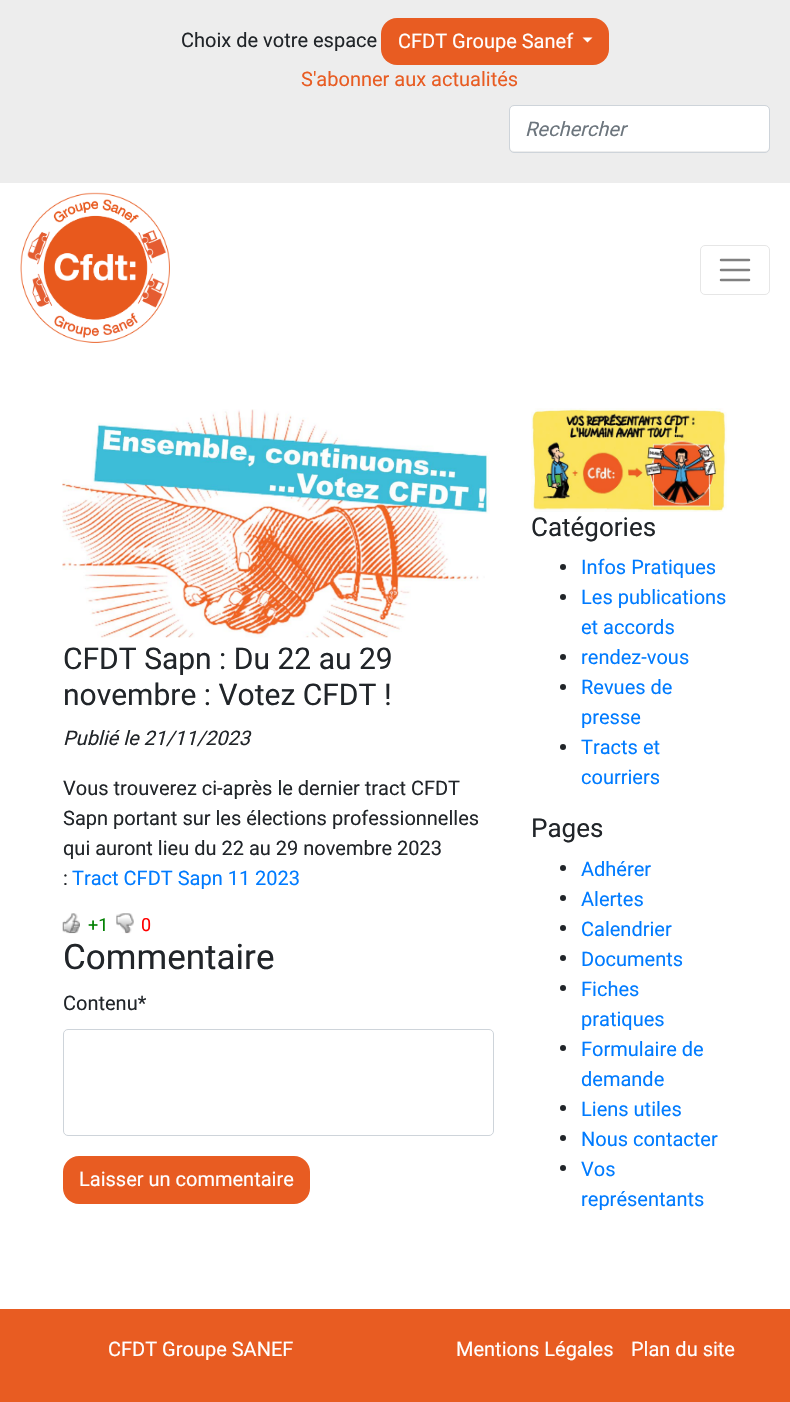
void draw(SkCanvas* canvas) {
	SkPaint fill;
	fill.setAntiAlias(true);
	auto makeFont = [&](const char* family, int weight, float size, bool italic = false) {
		SkFontStyle style(weight, SkFontStyle::kNormal_Width,
			italic ? SkFontStyle::kItalic_Slant : SkFontStyle::kUpright_Slant);
		SkFont result(fontMgr->matchFamilyStyle(family, style), size);
		result.setSubpixel(true);
		return result;
	};
	auto text = [&](const char* s, float x, float y, const SkFont& font) {
		canvas->drawString(s, x, y, font, fill);
	};
	auto box = [&](float l, float t, float r, float b) {
		canvas->drawRect(SkRect::MakeLTRB(l, t, r, b), fill);
	};
	auto roundBox = [&](float l, float t, float r, float b, float radius) {
		canvas->drawRoundRect(SkRect::MakeLTRB(l, t, r, b), radius, radius, fill);
	};
	auto picture = [&](const char* path, float l, float t, float r, float b) {
		auto image = SkImages::DeferredFromEncodedData(SkData::MakeFromFileName(path));
		canvas->drawImageRect(image, SkRect::MakeLTRB(l, t, r, b), SkSamplingOptions());
	};
	canvas->clear(0xFFFFFFFF);
	fill.setColor(0xFFEDEDED);
	box(0, 0, 790, 183);
	fill.setColor(0xFFE85C22);
	roundBox(381, 18, 609, 65, 16);
	fill.setColor(0xFFFFFFFF);
	canvas->drawPath(SkPathBuilder().moveTo(582.5f, 37.5f).lineTo(592.5f, 37.5f).lineTo(587.5f, 42.5f).close().detach(), fill);
	roundBox(510, 106, 769, 151, 4);
	fill.setStyle(SkPaint::kStroke_Style);
	fill.setStrokeWidth(1);
	fill.setColor(0xFFCED4DA);
	canvas->drawRoundRect(SkRect::MakeLTRB(509.5f, 105.5f, 769.5f, 152.5f), 4.5f, 4.5f, fill);
	picture("image0.png", 20, 192, 170, 343);
	fill.setColor(0xFFE6E6E6);
	canvas->drawRoundRect(SkRect::MakeLTRB(700.5f, 245.5f, 769.5f, 294.5f), 4.5f, 4.5f, fill);
	fill.setStrokeWidth(2.5f);
	fill.setStrokeCap(SkPaint::kRound_Cap);
	fill.setColor(0xFF808080);
	canvas->drawPath(SkPathBuilder().moveTo(721, 260).lineTo(749, 260).moveTo(721, 270).lineTo(749, 270).moveTo(721, 280).lineTo(749, 280).detach(), fill);
	picture("image1.png", 62, 409, 490, 638);
	picture("image2.png", 62, 913, 80, 934);
	picture("image3.png", 116, 913, 134, 934);
	fill.setStrokeWidth(1);
	fill.setStrokeCap(SkPaint::kButt_Cap);
	fill.setColor(0xFFCED4DA);
	canvas->drawRoundRect(SkRect::MakeLTRB(63.5f, 1029.5f, 493.5f, 1135.5f), 4.5f, 4.5f, fill);
	fill.setStyle(SkPaint::kFill_Style);
	fill.setColor(0xFFE85C22);
	roundBox(63, 1156, 310, 1204, 16);
	picture("image4.png", 531, 408, 727, 512);
	fill.setColor(0xFF212529);
	canvas->drawCircle(563, 567, 3, fill);
	canvas->drawCircle(563, 597, 3, fill);
	canvas->drawCircle(563, 657, 3, fill);
	canvas->drawCircle(563, 687, 3, fill);
	canvas->drawCircle(563, 747, 3, fill);
	canvas->drawCircle(563, 868, 3, fill);
	canvas->drawCircle(563, 898, 3, fill);
	canvas->drawCircle(563, 928, 3, fill);
	canvas->drawCircle(563, 958, 3, fill);
	canvas->drawCircle(563, 988, 3, fill);
	canvas->drawCircle(563, 1048, 3, fill);
	canvas->drawCircle(563, 1108, 3, fill);
	canvas->drawCircle(563, 1138, 3, fill);
	canvas->drawCircle(563, 1168, 3, fill);
	fill.setColor(0xFFE85C22);
	box(0, 1309, 790, 1402);
	auto font1 = makeFont("Roboto", 400, 20);
	fill.setColor(0xFF212529);
	text("Choix de votre espace", 181, 47, font1);
	fill.setColor(0xFFFFFFFF);
	text("CFDT Groupe Sanef", 398, 48, font1);
	fill.setColor(0xFFE85C22);
	text("S'abonner aux actualités", 301, 86, font1);
	auto font2 = makeFont("Roboto", 400, 20, true);
	fill.setColor(0xFF6C757D);
	text("Rechercher", 525, 136, font2);
	auto font3 = makeFont("Roboto", 400, 30);
	fill.setColor(0xFF212529);
	text("CFDT Sapn : Du 22 au 29", 63, 669, font3);
	text("novembre : Votez CFDT !", 63, 705, font3);
	text("Publié le 21/11/2023", 63, 745, font2);
	text("Vous trouverez ci-après le dernier tract CFDT", 63, 795, font1);
	text("Sapn portant sur les élections professionnelles", 63, 825, font1);
	text("qui auront lieu du 22 au 29 novembre 2023", 63, 855, font1);
	text(":", 63, 885, font1);
	fill.setColor(0xFF007BFF);
	text("Tract CFDT Sapn 11 2023", 72, 885, font1);
	auto font4 = makeFont("Roboto", 400, 18);
	fill.setColor(0xFF008000);
	text("+1", 88, 931, font4);
	fill.setColor(0xFFFF0000);
	text("0", 141, 931, font4);
	auto font5 = makeFont("Roboto", 400, 35);
	fill.setColor(0xFF212529);
	text("Commentaire", 63, 969, font5);
	text("Contenu*", 63, 1010, font1);
	fill.setColor(0xFFFFFFFF);
	text("Laisser un commentaire", 79, 1186, font1);
	auto font6 = makeFont("Roboto", 400, 26);
	fill.setColor(0xFF212529);
	text("Catégories", 531, 536, font6);
	fill.setColor(0xFF007BFF);
	text("Infos Pratiques", 581, 574, font1);
	text("Les publications", 581, 604, font1);
	text("et accords", 581, 634, font1);
	text("rendez-vous", 581, 664, font1);
	text("Revues de", 581, 694, font1);
	text("presse", 581, 724, font1);
	text("Tracts et", 581, 754, font1);
	text("courriers", 581, 784, font1);
	fill.setColor(0xFF212529);
	text("Pages", 531, 837, font6);
	fill.setColor(0xFF007BFF);
	text("Adhérer", 581, 876, font1);
	text("Alertes", 581, 906, font1);
	text("Calendrier", 581, 936, font1);
	text("Documents", 581, 966, font1);
	text("Fiches", 581, 996, font1);
	text("pratiques", 581, 1026, font1);
	text("Formulaire de", 581, 1056, font1);
	text("demande", 581, 1086, font1);
	text("Liens utiles", 581, 1116, font1);
	text("Nous contacter", 581, 1146, font1);
	text("Vos", 581, 1176, font1);
	text("représentants", 581, 1206, font1);
	fill.setColor(0xFFFFFFFF);
	text("CFDT Groupe SANEF", 108, 1356, font1);
	text("Mentions Légales", 456, 1356, font1);
	text("Plan du site", 631, 1356, font1);
}
